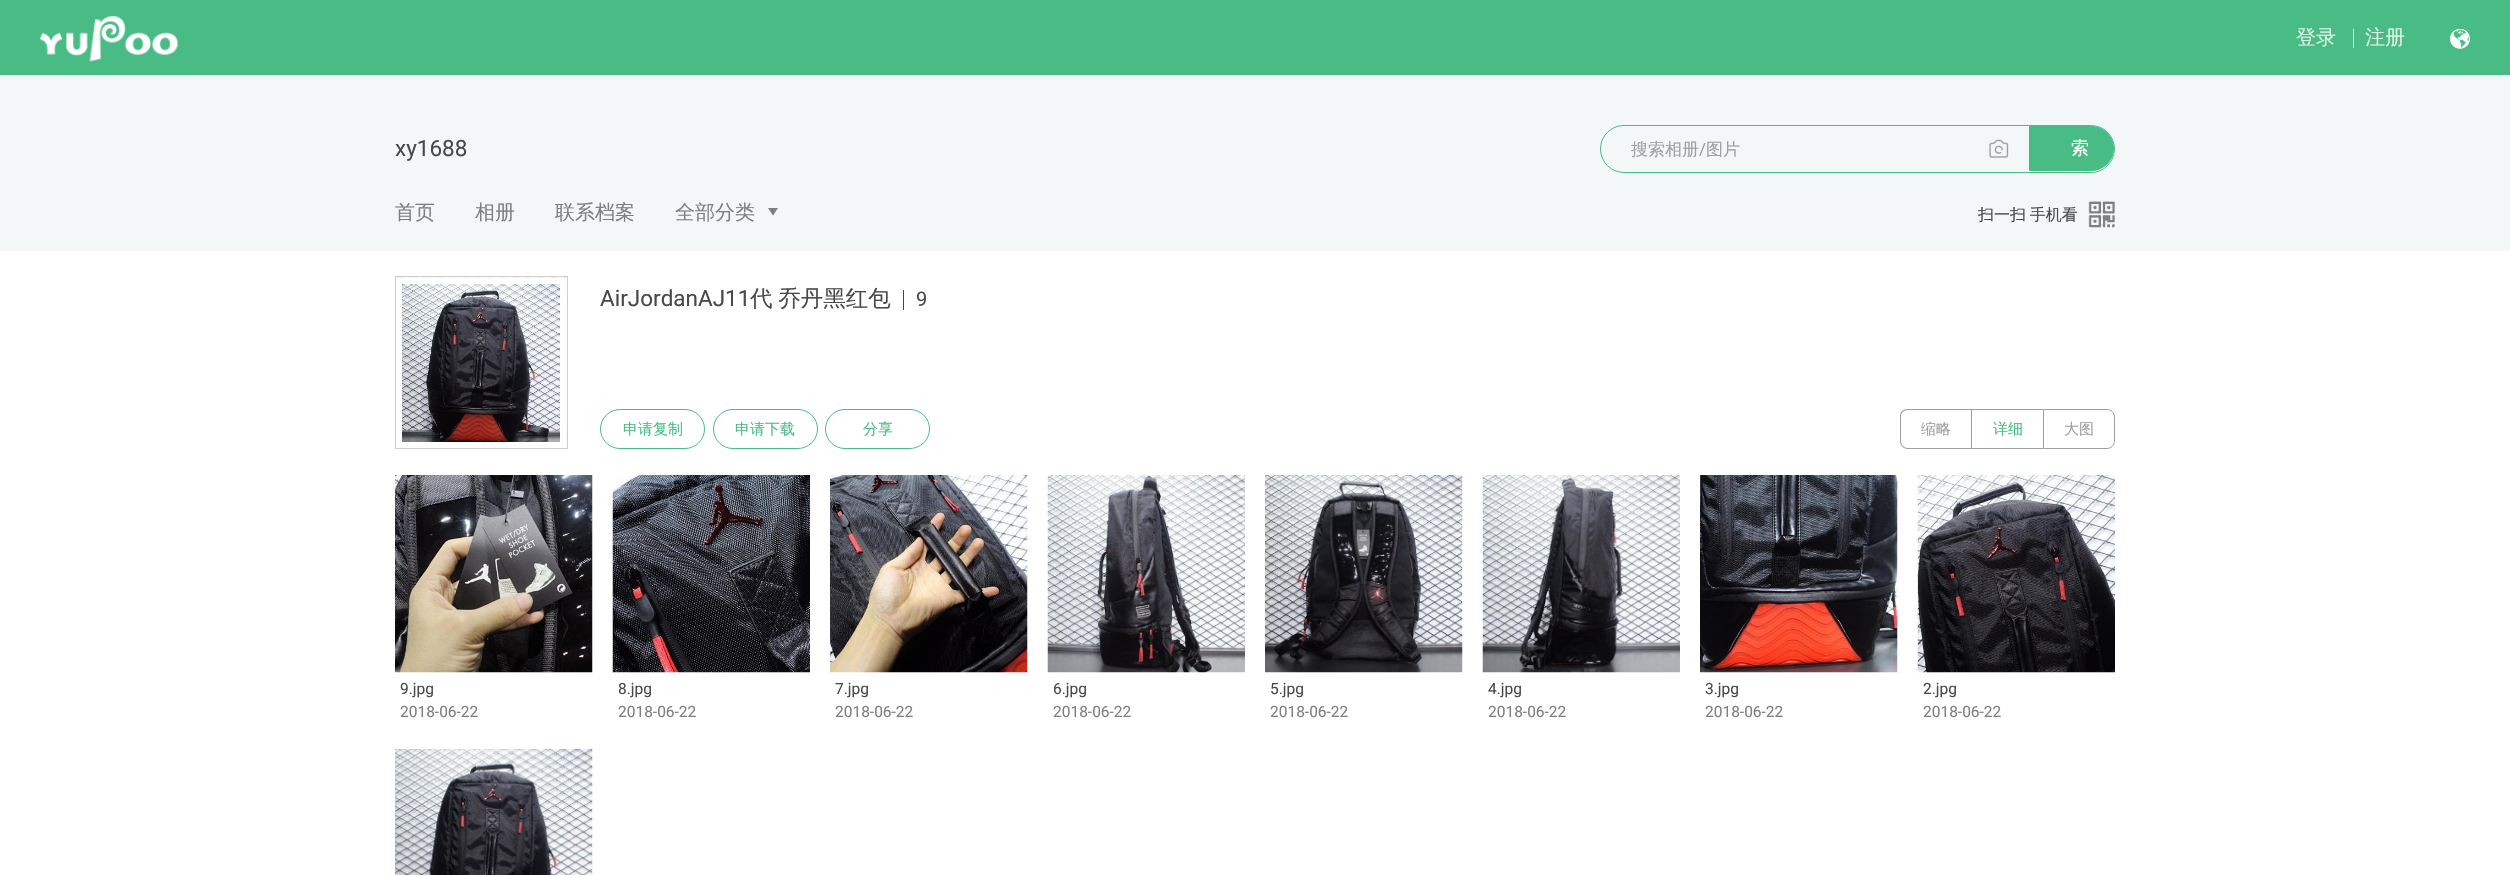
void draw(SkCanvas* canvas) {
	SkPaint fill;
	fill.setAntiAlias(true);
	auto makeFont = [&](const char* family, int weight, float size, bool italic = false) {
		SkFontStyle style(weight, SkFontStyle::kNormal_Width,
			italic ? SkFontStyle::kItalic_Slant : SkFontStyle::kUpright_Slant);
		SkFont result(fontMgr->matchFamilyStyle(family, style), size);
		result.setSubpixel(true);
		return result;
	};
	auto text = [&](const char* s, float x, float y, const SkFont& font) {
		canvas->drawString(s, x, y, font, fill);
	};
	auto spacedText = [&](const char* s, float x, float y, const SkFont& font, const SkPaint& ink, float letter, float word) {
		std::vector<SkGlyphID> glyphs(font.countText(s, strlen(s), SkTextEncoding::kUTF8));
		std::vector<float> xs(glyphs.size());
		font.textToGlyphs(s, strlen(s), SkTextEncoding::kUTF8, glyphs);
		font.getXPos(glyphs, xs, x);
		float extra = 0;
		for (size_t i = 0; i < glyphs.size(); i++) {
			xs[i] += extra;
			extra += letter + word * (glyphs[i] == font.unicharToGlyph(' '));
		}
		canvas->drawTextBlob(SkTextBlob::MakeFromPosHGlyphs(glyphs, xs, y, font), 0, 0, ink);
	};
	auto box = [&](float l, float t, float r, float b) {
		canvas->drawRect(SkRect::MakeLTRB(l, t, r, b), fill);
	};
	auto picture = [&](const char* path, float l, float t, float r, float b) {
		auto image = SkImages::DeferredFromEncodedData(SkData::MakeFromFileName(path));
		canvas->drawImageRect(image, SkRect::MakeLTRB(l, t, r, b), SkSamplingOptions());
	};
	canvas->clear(0xFFFFFFFF);
	fill.setColor(0xFF49BC85);
	box(0, 0, 2510, 75);
	picture("image0.png", 40, 16, 178, 62);
	fill.setColor(0xFFFFFFFF);
	box(2353, 29, 2354, 48);
	picture("image1.png", 2450, 29, 2470, 49);
	fill.setColor(0xFFF3F7F7);
	box(0, 75, 2510, 251);
	fill.setStyle(SkPaint::kStroke_Style);
	fill.setStrokeWidth(1);
	fill.setColor(0xFF49BC85);
	canvas->drawRoundRect(SkRect::MakeLTRB(1600.5f, 125.5f, 2114.5f, 172.5f), 23.5f, 23.5f, fill);
	picture("image2.png", 1989, 139, 2009, 158);
	fill.setStyle(SkPaint::kFill_Style);
	canvas->drawPath(SkPathBuilder().moveTo(2029.5f, 126.5f).lineTo(2091.5f, 126.5f).cubicTo(2103.5f, 126.5f, 2113.5f, 136.5f, 2113.5f, 148.5f).cubicTo(2113.5f, 160.5f, 2103.5f, 170.5f, 2091.5f, 170.5f).lineTo(2029.5f, 170.5f).close().detach(), fill);
	fill.setStyle(SkPaint::kStroke_Style);
	canvas->drawPath(SkPathBuilder().moveTo(2029.5f, 126.5f).lineTo(2091.5f, 126.5f).cubicTo(2103.5f, 126.5f, 2113.5f, 136.5f, 2113.5f, 148.5f).cubicTo(2113.5f, 160.5f, 2103.5f, 170.5f, 2091.5f, 170.5f).lineTo(2029.5f, 170.5f).close().detach(), fill);
	fill.setStyle(SkPaint::kFill_Style);
	fill.setColor(0xFF7F7F7F);
	canvas->drawPath(SkPathBuilder().moveTo(773, 215.5f).lineTo(768, 208).lineTo(778, 208).close().detach(), fill);
	picture("image3.png", 2088, 201, 2115, 228);
	fill.setStyle(SkPaint::kStroke_Style);
	fill.setColor(0xFFCFCFCF);
	canvas->drawRect(SkRect::MakeLTRB(395.5f, 276.5f, 567.5f, 448.5f), fill);
	picture("image4.png", 396, 277, 567, 447);
	fill.setStrokeWidth(6);
	fill.setColor(0xFFFFFFFF);
	canvas->drawRect(SkRect::MakeLTRB(399, 281, 563, 445), fill);
	fill.setStyle(SkPaint::kFill_Style);
	fill.setColor(0xFF494949);
	box(903, 290, 904, 310);
	fill.setStyle(SkPaint::kStroke_Style);
	fill.setStrokeWidth(1);
	fill.setColor(0xFF49BC85);
	canvas->drawRoundRect(SkRect::MakeLTRB(600.5f, 409.5f, 704.5f, 448.5f), 19.5f, 19.5f, fill);
	canvas->drawRoundRect(SkRect::MakeLTRB(713.5f, 409.5f, 817.5f, 448.5f), 19.5f, 19.5f, fill);
	canvas->drawRoundRect(SkRect::MakeLTRB(825.5f, 409.5f, 929.5f, 448.5f), 19.5f, 19.5f, fill);
	fill.setStyle(SkPaint::kFill_Style);
	fill.setColor(0xFF9F9F9F);
	canvas->drawPath(SkPathBuilder(SkPathFillType::kEvenOdd).moveTo(1908, 409).lineTo(1971, 409).lineTo(1971, 449).lineTo(1908, 449).cubicTo(1903, 449, 1900, 445, 1900, 441).lineTo(1900, 416).cubicTo(1900, 412, 1903, 409, 1908, 409).close().moveTo(1908, 410).lineTo(1971, 410).lineTo(1971, 448).lineTo(1908, 448).cubicTo(1904, 448, 1901, 445, 1901, 441).lineTo(1901, 416).cubicTo(1901, 413, 1904, 410, 1908, 410).close().detach(), fill);
	box(1971, 409, 2043, 410);
	box(1971, 448, 2043, 449);
	box(1971, 409, 1972, 449);
	fill.setStyle(SkPaint::kStroke_Style);
	canvas->drawPath(SkPathBuilder().moveTo(2043.5f, 409.5f).lineTo(2107, 409.5f).cubicTo(2111, 409.5f, 2114.5f, 413, 2114.5f, 417).lineTo(2114.5f, 441).cubicTo(2114.5f, 445, 2111, 448.5f, 2107, 448.5f).lineTo(2043.5f, 448.5f).close().detach(), fill);
	picture("image5.png", 395, 475, 593, 673);
	picture("image6.png", 612, 475, 810, 673);
	picture("image7.png", 830, 475, 1028, 673);
	picture("image8.png", 1047, 475, 1245, 673);
	picture("image9.png", 1265, 475, 1463, 673);
	picture("image10.png", 1482, 475, 1680, 673);
	picture("image11.png", 1700, 475, 1898, 673);
	picture("image12.png", 1917, 475, 2115, 673);
	picture("image13.png", 395, 748, 593, 875);
	auto font1 = makeFont("WenQuanYi Zen Hei", 500, 20);
	fill.setStyle(SkPaint::kFill_Style);
	fill.setColor(0xFFDBF2E7);
	text("登录", 2296, 44, font1);
	text("注册", 2365, 44, font1);
	auto font2 = makeFont("Roboto", 400, 22.5f);
	fill.setColor(0xFF494949);
	text("xy1688", 395, 156, font2);
	auto font3 = makeFont("WenQuanYi Zen Hei", 500, 17);
	fill.setColor(0xFF9F9F9F);
	text("搜索相册", 1631, 155, font3);
	auto font4 = makeFont("Roboto", 400, 17);
	text("/", 1699, 155, font4);
	text("图片", 1706, 155, font3);
	auto font5 = makeFont("Noto Sans", 400, 18);
	fill.setColor(0xFFFFFFFF);
	text("搜", 2054, 154, font5);
	auto font6 = makeFont("WenQuanYi Zen Hei", 500, 18);
	text("索", 2071, 154, font6);
	fill.setColor(0xFF7F7F7F);
	text("首页", 395, 219, font1);
	text("相册", 475, 219, font1);
	text("联系档案", 555, 219, font1);
	text("全部分类", 675, 219, font1);
	auto font7 = makeFont("WenQuanYi Zen Hei", 500, 16);
	fill.setColor(0xFF494949);
	spacedText("扫一扫 手机看", 1978, 220, font7, fill, 0, -1);
	text("AirJordanAJ11", 600, 306, font2);
	auto font8 = makeFont("WenQuanYi Zen Hei", 500, 22.5f);
	spacedText("代 乔丹黑红包", 750, 306, font8, fill, 0, -1);
	auto font9 = makeFont("Roboto", 400, 20);
	text("9", 916, 306, font9);
	auto font10 = makeFont("WenQuanYi Zen Hei", 500, 15);
	fill.setColor(0xFF49BC85);
	text("申请复制", 623, 434, font10);
	text("申请下载", 735, 434, font10);
	text("分享", 863, 434, font10);
	fill.setColor(0xFF9F9F9F);
	text("缩略", 1921, 434, font10);
	fill.setColor(0xFF49BC85);
	text("详细", 1993, 434, font10);
	fill.setColor(0xFF9F9F9F);
	text("大图", 2064, 434, font10);
	auto font11 = makeFont("Roboto", 400, 15.5f);
	fill.setColor(0xFF494949);
	text("9.jpg", 400, 694, font11);
	fill.setColor(0xFF7F7F7F);
	text("2018-06-22", 400, 717, font11);
	fill.setColor(0xFF494949);
	text("8.jpg", 618, 694, font11);
	fill.setColor(0xFF7F7F7F);
	text("2018-06-22", 618, 717, font11);
	fill.setColor(0xFF494949);
	text("7.jpg", 835, 694, font11);
	fill.setColor(0xFF7F7F7F);
	text("2018-06-22", 835, 717, font11);
	fill.setColor(0xFF494949);
	text("6.jpg", 1053, 694, font11);
	fill.setColor(0xFF7F7F7F);
	text("2018-06-22", 1053, 717, font11);
	fill.setColor(0xFF494949);
	text("5.jpg", 1270, 694, font11);
	fill.setColor(0xFF7F7F7F);
	text("2018-06-22", 1270, 717, font11);
	fill.setColor(0xFF494949);
	text("4.jpg", 1488, 694, font11);
	fill.setColor(0xFF7F7F7F);
	text("2018-06-22", 1488, 717, font11);
	fill.setColor(0xFF494949);
	text("3.jpg", 1705, 694, font11);
	fill.setColor(0xFF7F7F7F);
	text("2018-06-22", 1705, 717, font11);
	fill.setColor(0xFF494949);
	text("2.jpg", 1923, 694, font11);
	fill.setColor(0xFF7F7F7F);
	text("2018-06-22", 1923, 717, font11);
}
